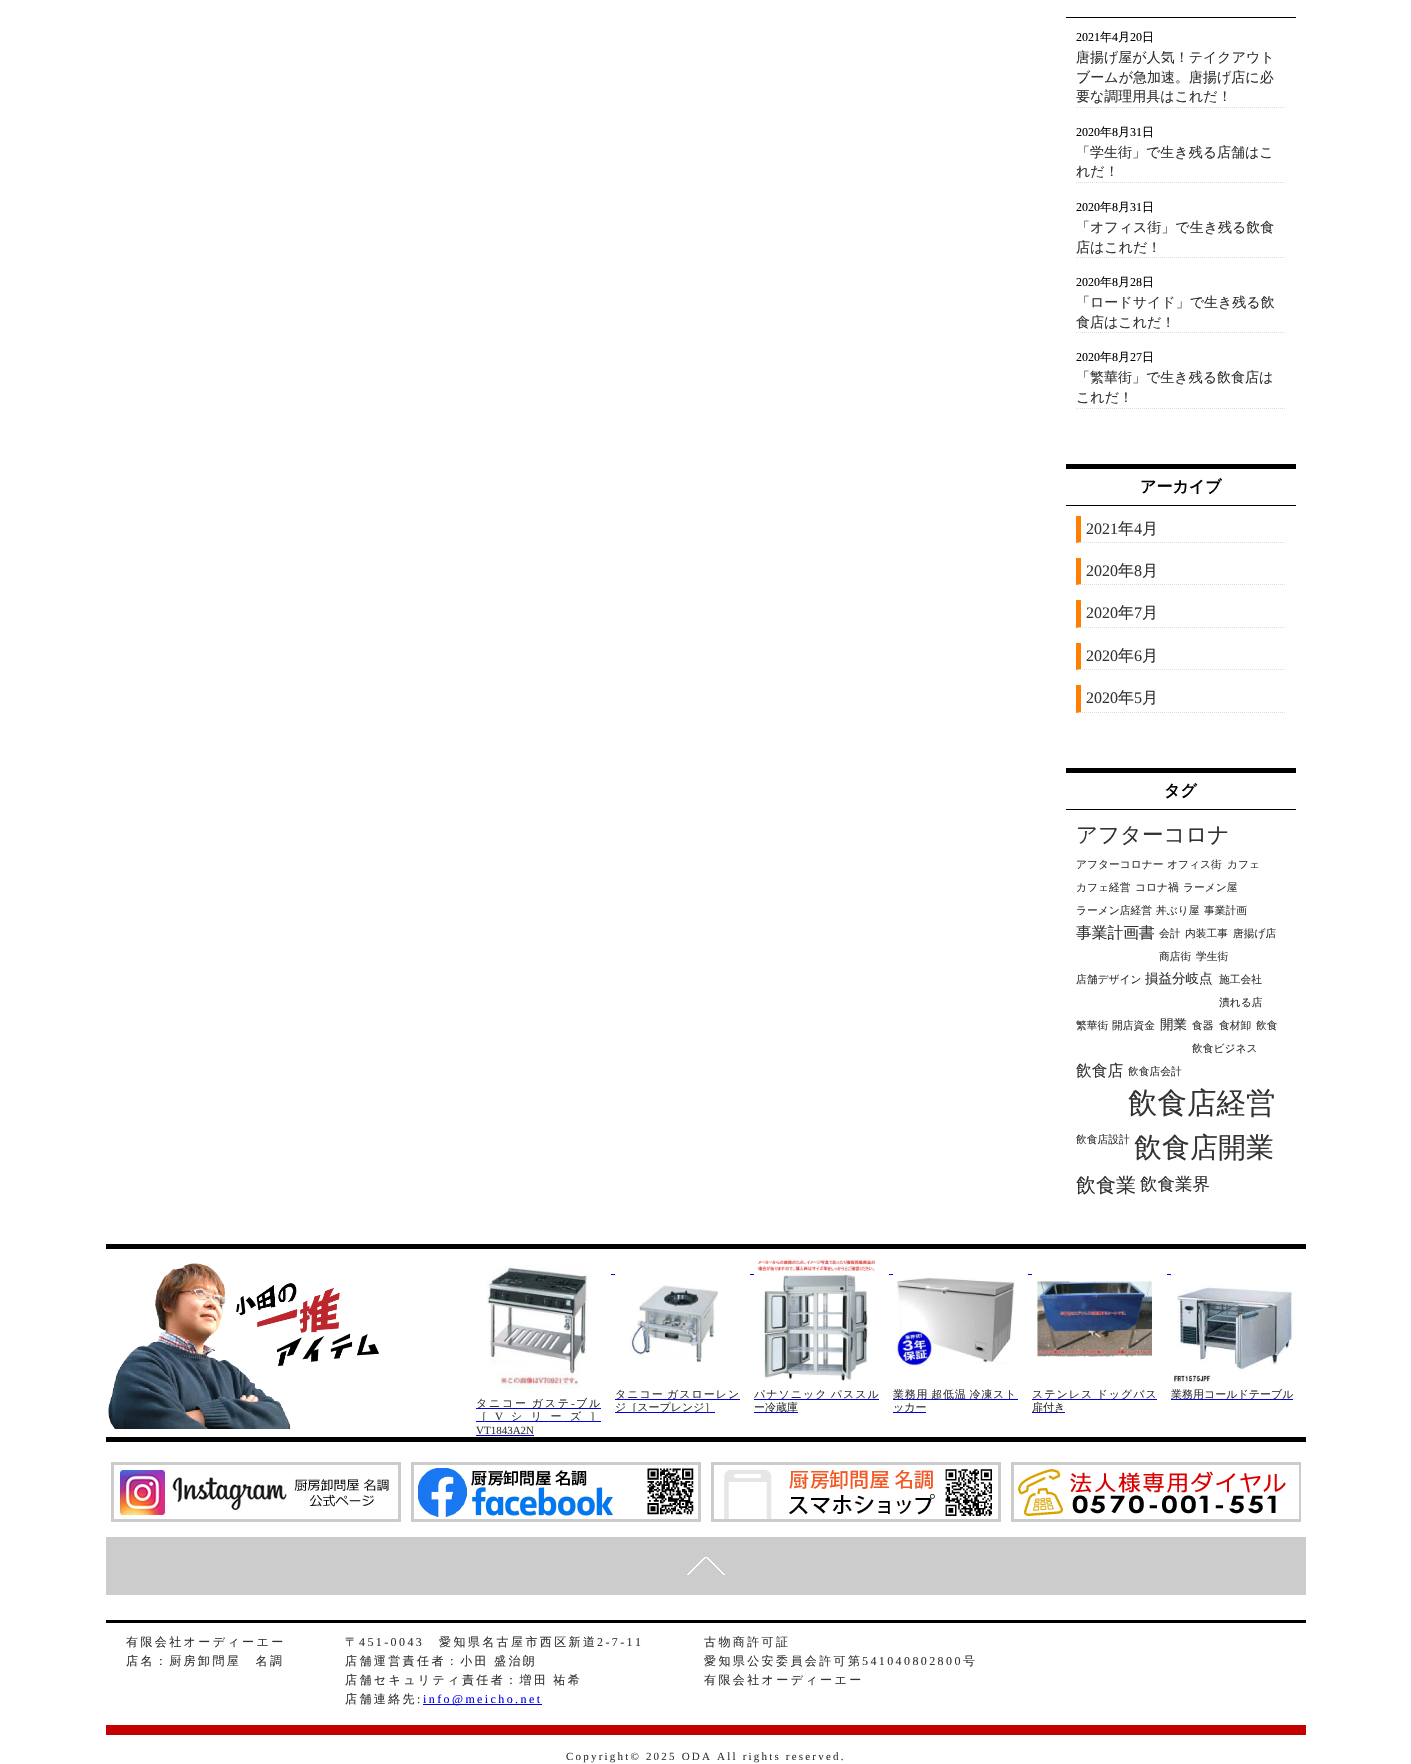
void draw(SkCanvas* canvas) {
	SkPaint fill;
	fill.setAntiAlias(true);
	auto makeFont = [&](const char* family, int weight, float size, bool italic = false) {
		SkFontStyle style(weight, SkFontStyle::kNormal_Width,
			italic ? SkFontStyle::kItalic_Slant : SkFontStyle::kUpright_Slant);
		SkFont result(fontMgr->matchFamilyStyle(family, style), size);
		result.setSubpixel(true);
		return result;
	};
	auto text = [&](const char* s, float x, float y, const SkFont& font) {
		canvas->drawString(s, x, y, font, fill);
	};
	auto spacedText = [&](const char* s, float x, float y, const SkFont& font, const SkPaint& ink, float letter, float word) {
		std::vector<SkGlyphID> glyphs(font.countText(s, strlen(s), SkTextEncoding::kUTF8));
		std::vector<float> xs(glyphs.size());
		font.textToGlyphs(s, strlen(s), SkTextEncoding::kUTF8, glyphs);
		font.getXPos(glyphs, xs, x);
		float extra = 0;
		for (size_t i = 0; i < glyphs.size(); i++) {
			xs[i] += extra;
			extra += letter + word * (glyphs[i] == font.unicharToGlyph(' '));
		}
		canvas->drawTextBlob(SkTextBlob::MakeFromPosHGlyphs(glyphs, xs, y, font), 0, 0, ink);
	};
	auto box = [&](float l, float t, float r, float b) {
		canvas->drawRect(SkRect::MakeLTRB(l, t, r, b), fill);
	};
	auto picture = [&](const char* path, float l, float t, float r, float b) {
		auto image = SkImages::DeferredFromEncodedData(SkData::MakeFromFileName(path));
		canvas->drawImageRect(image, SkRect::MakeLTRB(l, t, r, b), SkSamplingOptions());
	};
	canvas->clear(0xFFFFFFFF);
	fill.setColor(0xFF000000);
	box(1066, 17, 1296, 18);
	fill.setStyle(SkPaint::kStroke_Style);
	fill.setStrokeWidth(1);
	fill.setColor(0xFFDDDDDD);
	fill.setPathEffect(SkDashPathEffect::Make({{1, 1}}, 0));
	canvas->drawPath(SkPathBuilder().moveTo(1076, 107.5f).lineTo(1286, 107.5f).detach(), fill);
	fill.setPathEffect(nullptr);
	fill.setPathEffect(SkDashPathEffect::Make({{1, 1}}, 0));
	canvas->drawPath(SkPathBuilder().moveTo(1076, 182.5f).lineTo(1286, 182.5f).detach(), fill);
	fill.setPathEffect(nullptr);
	fill.setPathEffect(SkDashPathEffect::Make({{1, 1}}, 0));
	canvas->drawPath(SkPathBuilder().moveTo(1076, 257.5f).lineTo(1286, 257.5f).detach(), fill);
	fill.setPathEffect(nullptr);
	fill.setPathEffect(SkDashPathEffect::Make({{1, 1}}, 0));
	canvas->drawPath(SkPathBuilder().moveTo(1076, 332.5f).lineTo(1286, 332.5f).detach(), fill);
	fill.setPathEffect(nullptr);
	fill.setPathEffect(SkDashPathEffect::Make({{1, 1}}, 0));
	canvas->drawPath(SkPathBuilder().moveTo(1076, 408.5f).lineTo(1286, 408.5f).detach(), fill);
	fill.setPathEffect(nullptr);
	fill.setStyle(SkPaint::kFill_Style);
	fill.setColor(0xFF000000);
	box(1066, 464, 1296, 469);
	box(1066, 505, 1296, 506);
	fill.setStyle(SkPaint::kStroke_Style);
	fill.setColor(0xFFDDDDDD);
	fill.setPathEffect(SkDashPathEffect::Make({{1, 1}}, 0));
	canvas->drawPath(SkPathBuilder().moveTo(1076, 542.5f).lineTo(1286, 542.5f).detach(), fill);
	fill.setPathEffect(nullptr);
	fill.setStyle(SkPaint::kFill_Style);
	fill.setColor(0xFFFF7F00);
	canvas->drawPath(SkPathBuilder().moveTo(1076, 543).lineTo(1076, 516).lineTo(1081, 516).lineTo(1081, 542).close().detach(), fill);
	fill.setStyle(SkPaint::kStroke_Style);
	fill.setColor(0xFFDDDDDD);
	fill.setPathEffect(SkDashPathEffect::Make({{1, 1}}, 0));
	canvas->drawPath(SkPathBuilder().moveTo(1076, 584.5f).lineTo(1286, 584.5f).detach(), fill);
	fill.setPathEffect(nullptr);
	fill.setStyle(SkPaint::kFill_Style);
	fill.setColor(0xFFFF7F00);
	canvas->drawPath(SkPathBuilder().moveTo(1076, 585).lineTo(1076, 558).lineTo(1081, 558).lineTo(1081, 584).close().detach(), fill);
	fill.setStyle(SkPaint::kStroke_Style);
	fill.setColor(0xFFDDDDDD);
	fill.setPathEffect(SkDashPathEffect::Make({{1, 1}}, 0));
	canvas->drawPath(SkPathBuilder().moveTo(1076, 627.5f).lineTo(1286, 627.5f).detach(), fill);
	fill.setPathEffect(nullptr);
	fill.setStyle(SkPaint::kFill_Style);
	fill.setColor(0xFFFF7F00);
	canvas->drawPath(SkPathBuilder().moveTo(1076, 628).lineTo(1076, 600).lineTo(1081, 600).lineTo(1081, 627).close().detach(), fill);
	fill.setStyle(SkPaint::kStroke_Style);
	fill.setColor(0xFFDDDDDD);
	fill.setPathEffect(SkDashPathEffect::Make({{1, 1}}, 0));
	canvas->drawPath(SkPathBuilder().moveTo(1076, 669.5f).lineTo(1286, 669.5f).detach(), fill);
	fill.setPathEffect(nullptr);
	fill.setStyle(SkPaint::kFill_Style);
	fill.setColor(0xFFFF7F00);
	canvas->drawPath(SkPathBuilder().moveTo(1076, 670).lineTo(1076, 643).lineTo(1081, 643).lineTo(1081, 669).close().detach(), fill);
	fill.setStyle(SkPaint::kStroke_Style);
	fill.setColor(0xFFDDDDDD);
	fill.setPathEffect(SkDashPathEffect::Make({{1, 1}}, 0));
	canvas->drawPath(SkPathBuilder().moveTo(1076, 712.5f).lineTo(1286, 712.5f).detach(), fill);
	fill.setPathEffect(nullptr);
	fill.setStyle(SkPaint::kFill_Style);
	fill.setColor(0xFFFF7F00);
	canvas->drawPath(SkPathBuilder().moveTo(1076, 713).lineTo(1076, 685).lineTo(1081, 685).lineTo(1081, 712).close().detach(), fill);
	fill.setColor(0xFF000000);
	box(1066, 768, 1296, 773);
	box(1066, 809, 1296, 810);
	box(106, 1244, 1306, 1249);
	box(106, 1437, 1306, 1442);
	picture("image0.png", 108, 1263, 380, 1429);
	fill.setColor(0xFF0000EE);
	box(611, 1274, 615, 1275);
	box(750, 1274, 754, 1275);
	box(889, 1274, 893, 1275);
	box(1028, 1274, 1032, 1275);
	box(1167, 1274, 1171, 1275);
	picture("image1.png", 486, 1266, 588, 1389);
	box(476, 1408, 601, 1409);
	box(476, 1421, 601, 1422);
	box(476, 1435, 534, 1436);
	picture("image2.png", 629, 1285, 718, 1363);
	box(615, 1399, 740, 1400);
	box(615, 1412, 715, 1413);
	picture("image3.png", 757, 1259, 875, 1381);
	box(754, 1399, 879, 1400);
	box(754, 1412, 798, 1413);
	picture("image4.png", 893, 1277, 1015, 1366);
	box(893, 1399, 1018, 1400);
	box(893, 1412, 926, 1413);
	picture("image5.png", 1037, 1281, 1152, 1357);
	box(1032, 1399, 1157, 1400);
	box(1032, 1412, 1065, 1413);
	picture("image6.png", 1174, 1284, 1296, 1384);
	box(1171, 1399, 1293, 1400);
	fill.setColor(0xFFC40000);
	box(106, 1725, 1306, 1735);
	picture("image7.png", 111, 1462, 401, 1522);
	picture("image8.png", 411, 1462, 701, 1522);
	picture("image9.png", 711, 1462, 1001, 1522);
	picture("image10.png", 1011, 1462, 1301, 1522);
	fill.setColor(0xFFCCCCCC);
	box(106, 1537, 1306, 1595);
	picture("image11.png", 687, 1557, 725, 1575);
	fill.setColor(0xFF000000);
	box(106, 1620, 1306, 1623);
	fill.setColor(0xFF0000EE);
	box(423, 1704, 542, 1705);
	auto font1 = makeFont("Liberation Serif", 400, 12);
	fill.setColor(0xFF000000);
	text("2021", 1076, 41, font1);
	auto font2 = makeFont("WenQuanYi Zen Hei", 500, 12);
	text("年", 1100, 41, font2);
	text("4", 1112, 41, font1);
	text("月", 1118, 41, font2);
	text("20", 1130, 41, font1);
	text("日", 1142, 41, font2);
	auto font3 = makeFont("WenQuanYi Zen Hei", 500, 14);
	fill.setColor(0xFF333333);
	text("唐揚げ屋が人気！テイクアウト", 1076, 62, font3);
	text("ブームが急加速。唐揚げ店に必", 1076, 82, font3);
	text("要な調理用具はこれだ！", 1076, 101, font3);
	fill.setColor(0xFF000000);
	text("2020", 1076, 136, font1);
	text("年", 1100, 136, font2);
	text("8", 1112, 136, font1);
	text("月", 1118, 136, font2);
	text("31", 1130, 136, font1);
	text("日", 1142, 136, font2);
	fill.setColor(0xFF333333);
	text("「学生街」で生き残る店舗はこ", 1076, 157, font3);
	text("れだ！", 1076, 176, font3);
	fill.setColor(0xFF000000);
	text("2020", 1076, 211, font1);
	text("年", 1100, 211, font2);
	text("8", 1112, 211, font1);
	text("月", 1118, 211, font2);
	text("31", 1130, 211, font1);
	text("日", 1142, 211, font2);
	fill.setColor(0xFF333333);
	text("「オフィス街」で生き残る飲食", 1076, 232, font3);
	text("店はこれだ！", 1076, 252, font3);
	fill.setColor(0xFF000000);
	text("2020", 1076, 286, font1);
	text("年", 1100, 286, font2);
	text("8", 1112, 286, font1);
	text("月", 1118, 286, font2);
	text("28", 1130, 286, font1);
	text("日", 1142, 286, font2);
	fill.setColor(0xFF333333);
	text("「ロードサイド」で生き残る飲", 1076, 307, font3);
	text("食店はこれだ！", 1076, 327, font3);
	fill.setColor(0xFF000000);
	text("2020", 1076, 361, font1);
	text("年", 1100, 361, font2);
	text("8", 1112, 361, font1);
	text("月", 1118, 361, font2);
	text("27", 1130, 361, font1);
	text("日", 1142, 361, font2);
	fill.setColor(0xFF333333);
	text("「繁華街」で生き残る飲食店は", 1076, 382, font3);
	text("これだ！", 1076, 402, font3);
	auto font4 = makeFont("WenQuanYi Zen Hei", 700, 16);
	fill.setColor(0xFF000000);
	text("アーカイブ", 1140, 492, font4);
	auto font5 = makeFont("Liberation Serif", 400, 16);
	fill.setColor(0xFF333333);
	text("2021", 1086, 534, font5);
	auto font6 = makeFont("WenQuanYi Zen Hei", 500, 16);
	text("年", 1118, 534, font6);
	text("4", 1134, 534, font5);
	text("月", 1142, 534, font6);
	text("2020", 1086, 576, font5);
	text("年", 1118, 576, font6);
	text("8", 1134, 576, font5);
	text("月", 1142, 576, font6);
	text("2020", 1086, 618, font5);
	text("年", 1118, 618, font6);
	text("7", 1134, 618, font5);
	text("月", 1142, 618, font6);
	text("2020", 1086, 661, font5);
	text("年", 1118, 661, font6);
	text("6", 1134, 661, font5);
	text("月", 1142, 661, font6);
	text("2020", 1086, 703, font5);
	text("年", 1118, 703, font6);
	text("5", 1134, 703, font5);
	text("月", 1142, 703, font6);
	fill.setColor(0xFF000000);
	text("タグ", 1164, 796, font4);
	auto font7 = makeFont("WenQuanYi Zen Hei", 500, 21.5f);
	fill.setColor(0xFF333333);
	text("アフターコロナ", 1076, 842, font7);
	auto font8 = makeFont("WenQuanYi Zen Hei", 500, 10.75f);
	text("アフターコロナー", 1076, 868, font8);
	text("オフィス街", 1167, 868, font8);
	text("カフェ", 1227, 868, font8);
	text("カフェ経営", 1076, 891, font8);
	text("コロナ禍", 1135, 891, font8);
	text("ラーメン屋", 1183, 891, font8);
	text("ラーメン店経営", 1076, 914, font8);
	text("丼ぶり屋", 1156, 914, font8);
	text("事業計画", 1204, 914, font8);
	auto font9 = makeFont("WenQuanYi Zen Hei", 500, 15.75f);
	text("事業計画書", 1076, 938, font9);
	text("会計", 1159, 937, font8);
	text("内装工事", 1185, 937, font8);
	text("唐揚げ店", 1233, 937, font8);
	text("商店街", 1159, 960, font8);
	text("学生街", 1196, 960, font8);
	text("店舗デザイン", 1076, 983, font8);
	auto font10 = makeFont("WenQuanYi Zen Hei", 500, 13.5f);
	text("損益分岐点", 1145, 983, font10);
	text("施工会社", 1219, 983, font8);
	text("潰れる店", 1219, 1006, font8);
	text("繁華街", 1076, 1029, font8);
	text("開店資金", 1112, 1029, font8);
	text("開業", 1160, 1029, font10);
	text("食器", 1192, 1029, font8);
	text("食材卸", 1219, 1029, font8);
	text("飲食", 1256, 1029, font8);
	text("飲食ビジネス", 1192, 1052, font8);
	text("飲食店", 1076, 1076, font9);
	text("飲食店会計", 1128, 1075, font8);
	auto font11 = makeFont("WenQuanYi Zen Hei", 500, 29.5f);
	text("飲食店経営", 1128, 1113, font11);
	text("飲食店設計", 1076, 1143, font8);
	auto font12 = makeFont("WenQuanYi Zen Hei", 500, 28);
	text("飲食店開業", 1134, 1157, font12);
	auto font13 = makeFont("WenQuanYi Zen Hei", 500, 20);
	text("飲食業", 1076, 1192, font13);
	auto font14 = makeFont("WenQuanYi Zen Hei", 500, 17.5f);
	text("飲食業界", 1140, 1190, font14);
	auto font15 = makeFont("WenQuanYi Zen Hei", 500, 11);
	spacedText("タニコー ガステ", 476, 1407, font15, fill, 1.75f, -1);
	auto font16 = makeFont("Liberation Serif", 400, 11);
	spacedText("-", 571, 1407, font16, fill, 1.75f, 0);
	spacedText("ブル", 576, 1407, font15, fill, 1.75f, 0);
	spacedText("［", 476, 1420, font15, fill, 8.5f, 0);
	spacedText("V", 495, 1420, font16, fill, 8.5f, 0);
	spacedText("シリーズ］", 511, 1420, font15, fill, 8.5f, 0);
	text("VT1843A2N", 476, 1434, font16);
	spacedText("タニコー ガスローレン", 615, 1398, font15, fill, 1, -1);
	text("ジ［スープレンジ］", 615, 1411, font15);
	spacedText("パナソニック パススル", 754, 1398, font15, fill, 1, -1);
	text("ー冷蔵庫", 754, 1411, font15);
	spacedText("業務用 超低温 冷凍スト", 893, 1398, font15, fill, 0.75f, -1);
	text("ッカー", 893, 1411, font15);
	spacedText("ステンレス ドッグバス", 1032, 1398, font15, fill, 1, -1);
	text("扉付き", 1032, 1411, font15);
	text("業務用コールドテーブル", 1171, 1398, font15);
	spacedText("有限会社オーディーエー", 126, 1646, font2, fill, 2.4f, 0);
	spacedText("店名：厨房卸問屋　名調", 126, 1665, font2, fill, 2.4f, 0);
	spacedText("〒", 345, 1646, font2, fill, 2.4f, 0);
	spacedText("451-0043", 359, 1646, font1, fill, 2.4f, 0);
	spacedText("愛知県名古屋市西区新道", 439, 1646, font2, fill, 2.4f, 0);
	spacedText("2-7-11", 597, 1646, font1, fill, 2.4f, 0);
	spacedText("店舗運営責任者：小田 盛治朗", 345, 1665, font2, fill, 2.4f, -1);
	spacedText("店舗セキュリティ責任者：増田 祐希", 345, 1684, font2, fill, 2.4f, -1);
	spacedText("店舗連絡先", 345, 1703, font2, fill, 2.4f, 0);
	spacedText(":", 417, 1703, font1, fill, 2.4f, 0);
	fill.setColor(0xFF0000EE);
	spacedText("info@meicho.net", 423, 1703, font1, fill, 2.4f, 0);
	fill.setColor(0xFF333333);
	spacedText("古物商許可証", 704, 1646, font2, fill, 2.4f, 0);
	spacedText("愛知県公安委員会許可第", 704, 1665, font2, fill, 2.4f, 0);
	spacedText("541040802800", 862, 1665, font1, fill, 2.4f, 0);
	spacedText("号", 963, 1665, font2, fill, 2.4f, 0);
	spacedText("有限会社オーディーエー", 704, 1684, font2, fill, 2.4f, 0);
	spacedText("Copyright© 2025 ODA All rights reserved.", 566, 1760, font16, fill, 2.2f, 0);
}
